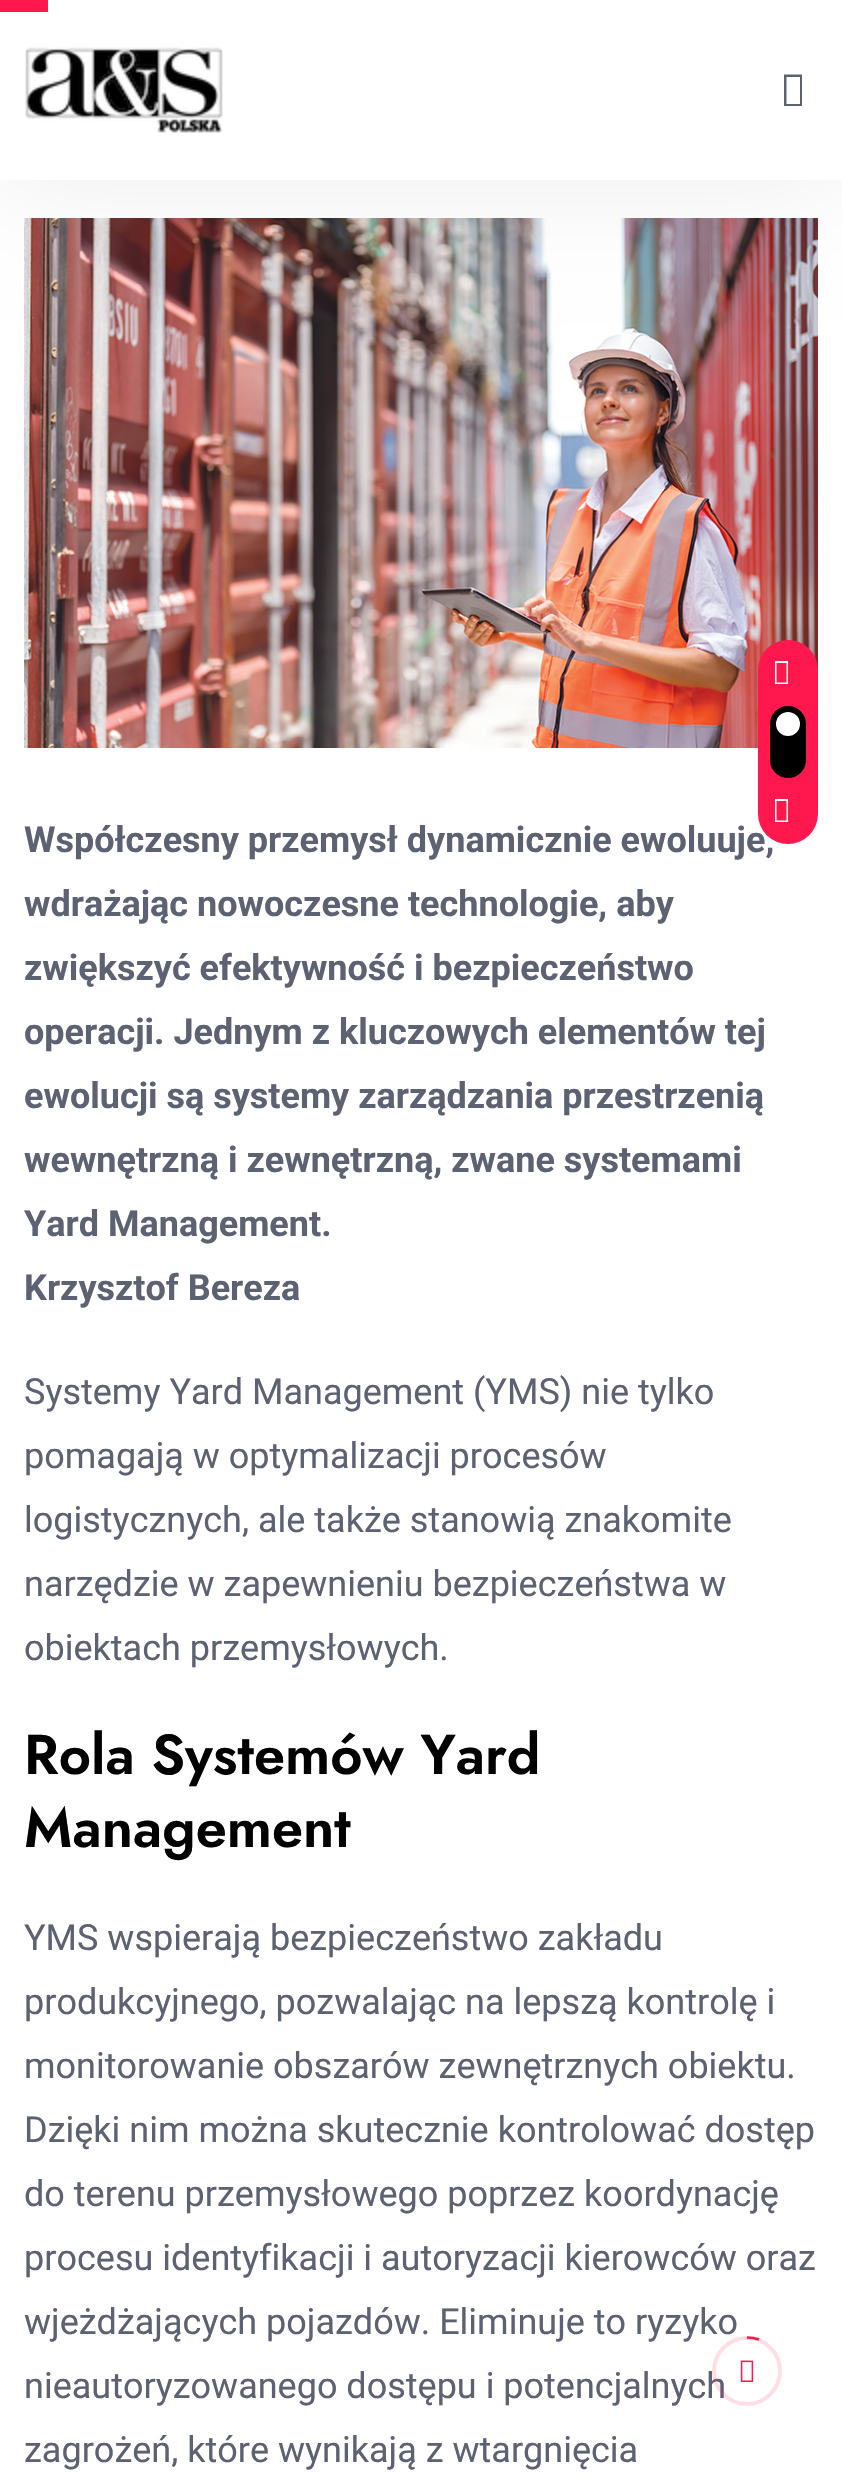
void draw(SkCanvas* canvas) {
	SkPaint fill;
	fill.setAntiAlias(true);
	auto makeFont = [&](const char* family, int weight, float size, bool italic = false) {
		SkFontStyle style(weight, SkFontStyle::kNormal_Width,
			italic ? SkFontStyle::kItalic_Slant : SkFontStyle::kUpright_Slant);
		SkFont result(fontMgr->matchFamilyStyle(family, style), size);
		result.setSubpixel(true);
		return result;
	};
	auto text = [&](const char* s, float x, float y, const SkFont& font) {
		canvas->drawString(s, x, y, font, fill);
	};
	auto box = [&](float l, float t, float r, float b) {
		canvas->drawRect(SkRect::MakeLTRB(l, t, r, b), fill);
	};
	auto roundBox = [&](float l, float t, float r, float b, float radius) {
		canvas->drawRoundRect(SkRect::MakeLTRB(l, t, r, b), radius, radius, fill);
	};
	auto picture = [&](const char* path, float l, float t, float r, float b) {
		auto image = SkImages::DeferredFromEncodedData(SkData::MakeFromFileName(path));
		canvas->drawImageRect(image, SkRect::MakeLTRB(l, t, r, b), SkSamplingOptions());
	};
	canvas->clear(0xFFFFFFFF);
	picture("image1.png", 24, 218, 818, 748);
	fill.setColor(0x12000000);
	fill.setMaskFilter(SkMaskFilter::MakeBlur(kNormal_SkBlurStyle, 60));
	canvas->drawRect(SkRect::MakeLTRB(0, 0, 842, 180), fill);
	fill.setMaskFilter(nullptr);
	fill.setColor(0xFFFFFFFF);
	box(0, 0, 842, 180);
	picture("image0.png", 25, 47, 223, 133);
	fill.setColor(0xFF5D6273);
	canvas->drawPath(SkPathBuilder().moveTo(784, 106).lineTo(784, 74.5f).lineTo(802, 74.5f).lineTo(802, 106).close().moveTo(786.5f, 104).lineTo(800, 104).lineTo(800, 77).lineTo(786.5f, 77).close().detach(), fill);
	fill.setColor(0xFFFF184E);
	box(0, 0, 48, 12);
	auto font1 = makeFont("Roboto", 700, 36);
	fill.setColor(0xFF5D6273);
	text("Współczesny przemysł dynamicznie ewoluuje,", 24, 852, font1);
	fill.setColor(0xFFFF184E);
	roundBox(758, 640, 818, 844, 30);
	fill.setColor(0xFF000000);
	roundBox(770, 706, 806, 778, 18);
	fill.setColor(0xFFFFFFFF);
	canvas->drawCircle(788, 724, 12, fill);
	canvas->drawPath(SkPathBuilder().moveTo(775, 822).lineTo(775, 799).lineTo(788, 799).lineTo(788, 822).close().moveTo(776.5f, 820.5f).lineTo(786.5f, 820.5f).lineTo(786.5f, 801).lineTo(776.5f, 801).close().detach(), fill);
	canvas->drawPath(SkPathBuilder().moveTo(775, 684).lineTo(775, 661).lineTo(788, 661).lineTo(788, 684).close().moveTo(776.5f, 682.5f).lineTo(786.5f, 682.5f).lineTo(786.5f, 663).lineTo(776.5f, 663).close().detach(), fill);
	fill.setColor(0xFF5D6273);
	text("wdrażając nowoczesne technologie, aby", 24, 916, font1);
	text("zwiększyć efektywność i bezpieczeństwo", 24, 980, font1);
	text("operacji. Jednym z kluczowych elementów tej", 24, 1044, font1);
	text("ewolucji są systemy zarządzania przestrzenią", 24, 1108, font1);
	text("wewnętrzną i zewnętrzną, zwane systemami", 24, 1172, font1);
	text("Yard Management.", 24, 1236, font1);
	text("Krzysztof Bereza", 24, 1300, font1);
	auto font2 = makeFont("Roboto", 400, 36);
	text("Systemy Yard Management (YMS) nie tylko", 24, 1404, font2);
	text("pomagają w optymalizacji procesów", 24, 1468, font2);
	text("logistycznych, ale także stanowią znakomite", 24, 1532, font2);
	text("narzędzie w zapewnieniu bezpieczeństwa w", 24, 1596, font2);
	text("obiektach przemysłowych.", 24, 1660, font2);
	auto font3 = makeFont("Jost", 600, 56);
	fill.setColor(0xFF000000);
	text("Rola Systemów Yard", 24, 1774, font3);
	text("Management", 24, 1847, font3);
	fill.setColor(0xFF5D6273);
	text("YMS wspierają bezpieczeństwo zakładu", 24, 1950, font2);
	text("produkcyjnego, pozwalając na lepszą kontrolę i", 24, 2014, font2);
	text("monitorowanie obszarów zewnętrznych obiektu.", 24, 2078, font2);
	text("Dzięki nim można skutecznie kontrolować dostęp", 24, 2142, font2);
	text("do terenu przemysłowego poprzez koordynację", 24, 2206, font2);
	text("procesu identyfikacji i autoryzacji kierowców oraz", 24, 2270, font2);
	text("wjeżdżających pojazdów. Eliminuje to ryzyko", 24, 2334, font2);
	text("nieautoryzowanego dostępu i potencjalnych", 24, 2398, font2);
	text("zagrożeń, które wynikają z wtargnięcia", 24, 2462, font2);
	fill.setStyle(SkPaint::kStroke_Style);
	fill.setStrokeWidth(4);
	fill.setColor(0x26FF184E);
	canvas->drawCircle(747, 2371, 33, fill);
	fill.setStrokeWidth(2.7f);
	fill.setColor(0xFFFF184E);
	canvas->drawPath(SkPathBuilder().moveTo(747, 2337.5f).cubicTo(751, 2337.5f, 755, 2338, 759, 2339.5f).detach(), fill);
	picture("image2.png", 740, 2360, 754, 2382);
}
